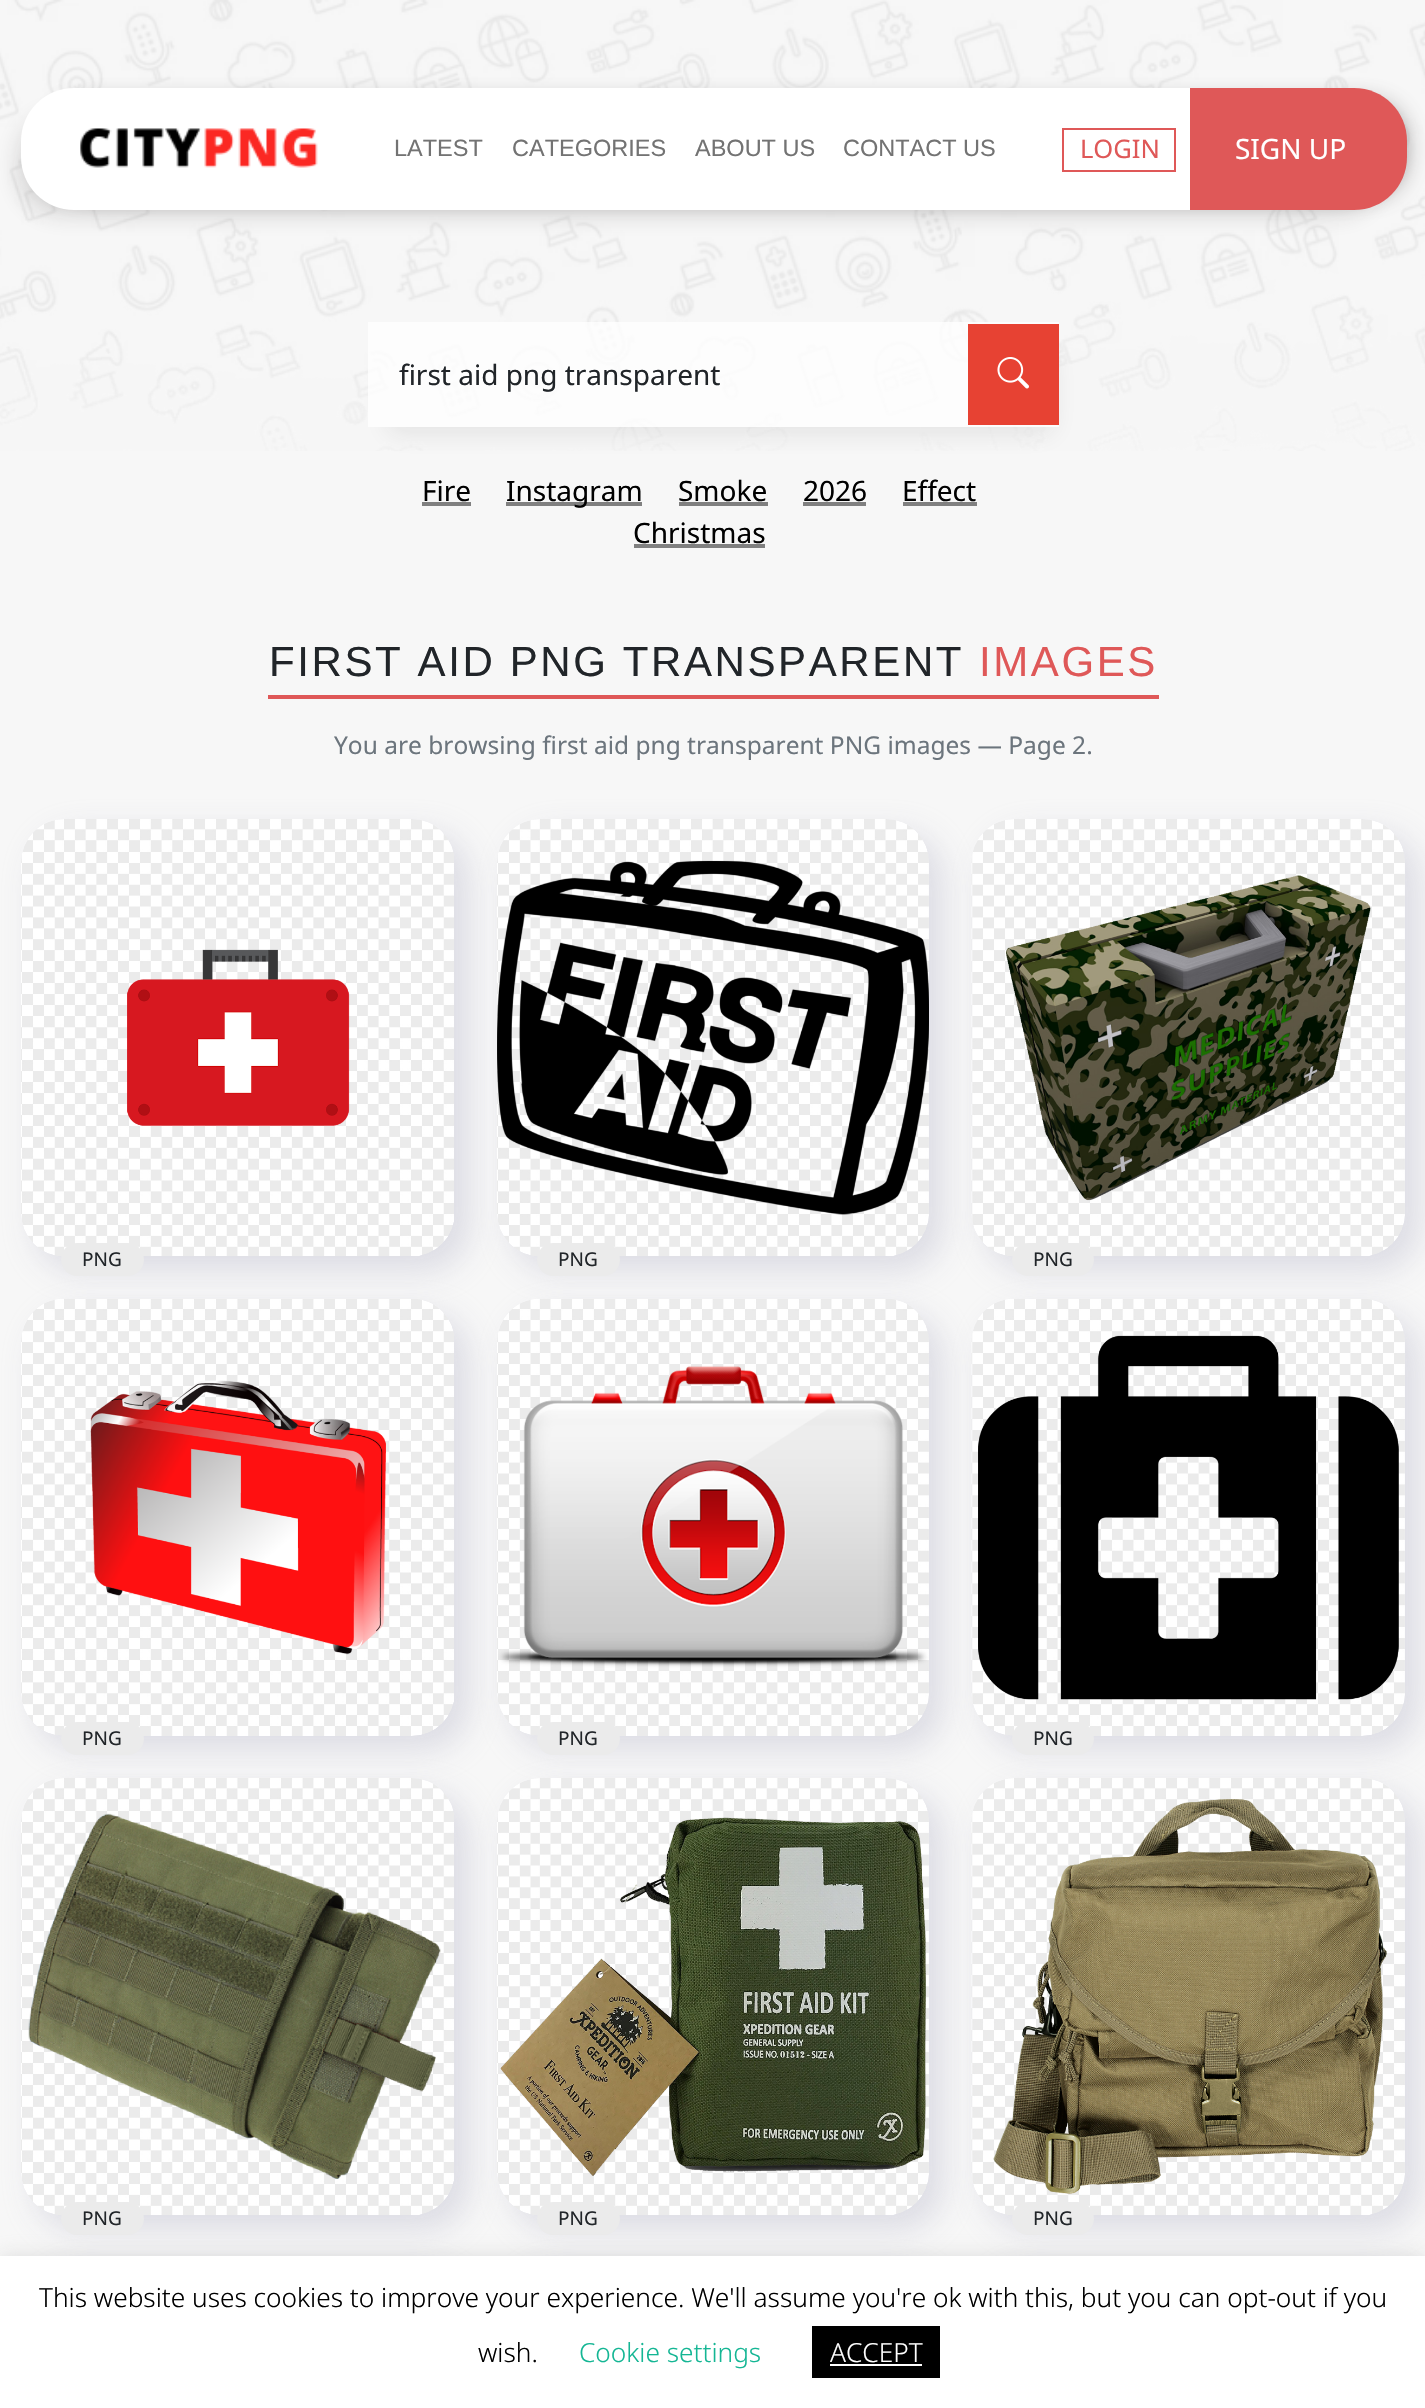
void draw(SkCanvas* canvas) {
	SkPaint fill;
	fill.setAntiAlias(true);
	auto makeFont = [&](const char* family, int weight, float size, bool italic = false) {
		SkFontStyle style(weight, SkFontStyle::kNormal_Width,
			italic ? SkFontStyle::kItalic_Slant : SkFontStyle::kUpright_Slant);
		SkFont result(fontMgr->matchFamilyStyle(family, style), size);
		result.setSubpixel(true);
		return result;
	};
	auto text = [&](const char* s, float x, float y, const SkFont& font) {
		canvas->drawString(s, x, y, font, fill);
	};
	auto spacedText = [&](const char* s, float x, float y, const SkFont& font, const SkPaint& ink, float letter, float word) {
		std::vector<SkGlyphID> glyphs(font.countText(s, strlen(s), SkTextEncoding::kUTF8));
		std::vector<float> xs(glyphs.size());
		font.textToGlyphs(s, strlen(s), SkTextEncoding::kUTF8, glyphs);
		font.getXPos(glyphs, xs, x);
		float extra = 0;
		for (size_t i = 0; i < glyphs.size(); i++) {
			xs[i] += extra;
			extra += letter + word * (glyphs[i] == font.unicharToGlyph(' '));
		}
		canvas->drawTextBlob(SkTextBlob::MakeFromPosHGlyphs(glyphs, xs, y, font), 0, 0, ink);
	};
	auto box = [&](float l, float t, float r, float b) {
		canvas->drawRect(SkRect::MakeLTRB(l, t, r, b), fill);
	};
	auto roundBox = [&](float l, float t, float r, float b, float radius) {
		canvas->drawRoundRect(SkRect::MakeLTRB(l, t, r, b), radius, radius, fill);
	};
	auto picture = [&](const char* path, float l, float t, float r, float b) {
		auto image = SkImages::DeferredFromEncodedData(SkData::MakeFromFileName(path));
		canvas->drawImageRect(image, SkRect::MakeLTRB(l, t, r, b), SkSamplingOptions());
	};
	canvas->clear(0xFFF7F7F7);
	picture("image0.png", 0, 0, 1425, 451);
	fill.setColor(0xBF4F4A4A);
	fill.setMaskFilter(SkMaskFilter::MakeBlur(kNormal_SkBlurStyle, 13));
	canvas->drawRoundRect(SkRect::MakeLTRB(53, 105, 1402, 193), 35, 35, fill);
	fill.setMaskFilter(nullptr);
	fill.setColor(0x33262525);
	fill.setMaskFilter(SkMaskFilter::MakeBlur(kNormal_SkBlurStyle, 13));
	canvas->drawRoundRect(SkRect::MakeLTRB(21, 117, 1377, 212), 39, 39, fill);
	fill.setMaskFilter(nullptr);
	fill.setColor(0xFFFFFFFF);
	roundBox(21, 88, 1405, 210, 53);
	picture("image1.png", 80, 128, 318, 168);
	fill.setStyle(SkPaint::kStroke_Style);
	fill.setStrokeWidth(2);
	fill.setColor(0xFFDF5858);
	canvas->drawRect(SkRect::MakeLTRB(1063, 129, 1175, 171), fill);
	fill.setStyle(SkPaint::kFill_Style);
	canvas->drawPath(SkPathBuilder().moveTo(1190, 88).lineTo(1354, 88).cubicTo(1383.5f, 88, 1407, 111.5f, 1407, 141).lineTo(1407, 157).cubicTo(1407, 186.5f, 1383.5f, 210, 1354, 210).lineTo(1190, 210).close().detach(), fill);
	canvas->save();
	canvas->clipPath(SkPathBuilder(SkPathFillType::kEvenOdd).moveTo(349, 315).lineTo(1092, 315).lineTo(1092, 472).lineTo(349, 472).close().moveTo(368, 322).lineTo(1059, 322).lineTo(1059, 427).lineTo(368, 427).close().detach(), true);
	fill.setColor(0x1A262525);
	fill.setMaskFilter(SkMaskFilter::MakeBlur(kNormal_SkBlurStyle, 13));
	canvas->drawRect(SkRect::MakeLTRB(389, 355, 1052, 432), fill);
	fill.setMaskFilter(nullptr);
	canvas->restore();
	fill.setColor(0xBFFFFFFF);
	box(368, 322, 1059, 427);
	fill.setColor(0xFFE74233);
	box(968, 324, 1059, 425);
	picture("image2.png", 997, 357, 1029, 389);
	fill.setColor(0xFF808080);
	box(422, 502, 471, 506);
	box(506, 502, 642, 506);
	box(679, 502, 768, 506);
	box(803, 502, 866, 506);
	box(903, 502, 977, 506);
	box(634, 544, 765, 548);
	fill.setColor(0xFFDF5858);
	box(268, 695, 1159, 699);
	fill.setColor(0xBFD3D3DD);
	fill.setMaskFilter(SkMaskFilter::MakeBlur(kNormal_SkBlurStyle, 16.5f));
	canvas->drawRoundRect(SkRect::MakeLTRB(35, 833, 469, 1271), 44, 44, fill);
	fill.setMaskFilter(nullptr);
	picture("image3.png", 21, 819, 454, 1256);
	fill.setColor(0xFFEBEBEB);
	roundBox(61, 1243, 144, 1276, 16.5f);
	fill.setColor(0xBFD3D3DD);
	fill.setMaskFilter(SkMaskFilter::MakeBlur(kNormal_SkBlurStyle, 16.5f));
	canvas->drawRoundRect(SkRect::MakeLTRB(511, 833, 943, 1271), 44, 44, fill);
	fill.setMaskFilter(nullptr);
	picture("image4.png", 497, 819, 929, 1256);
	fill.setColor(0xFFEBEBEB);
	roundBox(537, 1243, 620, 1276, 16.5f);
	fill.setColor(0xBFD3D3DD);
	fill.setMaskFilter(SkMaskFilter::MakeBlur(kNormal_SkBlurStyle, 16.5f));
	canvas->drawRoundRect(SkRect::MakeLTRB(985, 833, 1419, 1271), 44, 44, fill);
	fill.setMaskFilter(nullptr);
	picture("image5.png", 971, 819, 1405, 1256);
	fill.setColor(0xFFEBEBEB);
	roundBox(1012, 1243, 1094, 1276, 16.5f);
	fill.setColor(0xBFD3D3DD);
	fill.setMaskFilter(SkMaskFilter::MakeBlur(kNormal_SkBlurStyle, 16.5f));
	canvas->drawRoundRect(SkRect::MakeLTRB(35, 1313, 469, 1750), 44, 44, fill);
	fill.setMaskFilter(nullptr);
	picture("image6.png", 21, 1299, 454, 1736);
	fill.setColor(0xFFEBEBEB);
	roundBox(61, 1722, 144, 1755, 16.5f);
	fill.setColor(0xBFD3D3DD);
	fill.setMaskFilter(SkMaskFilter::MakeBlur(kNormal_SkBlurStyle, 16.5f));
	canvas->drawRoundRect(SkRect::MakeLTRB(511, 1313, 943, 1750), 44, 44, fill);
	fill.setMaskFilter(nullptr);
	picture("image7.png", 497, 1299, 929, 1736);
	fill.setColor(0xFFEBEBEB);
	roundBox(537, 1722, 620, 1755, 16.5f);
	fill.setColor(0xBFD3D3DD);
	fill.setMaskFilter(SkMaskFilter::MakeBlur(kNormal_SkBlurStyle, 16.5f));
	canvas->drawRoundRect(SkRect::MakeLTRB(985, 1313, 1419, 1750), 44, 44, fill);
	fill.setMaskFilter(nullptr);
	picture("image8.png", 971, 1299, 1405, 1736);
	fill.setColor(0xFFEBEBEB);
	roundBox(1012, 1722, 1094, 1755, 16.5f);
	fill.setColor(0xBFD3D3DD);
	fill.setMaskFilter(SkMaskFilter::MakeBlur(kNormal_SkBlurStyle, 16.5f));
	canvas->drawRoundRect(SkRect::MakeLTRB(35, 1792, 469, 2230), 44, 44, fill);
	fill.setMaskFilter(nullptr);
	picture("image9.png", 21, 1778, 454, 2215);
	fill.setColor(0xFFEBEBEB);
	roundBox(61, 2202, 144, 2235, 16.5f);
	fill.setColor(0xBFD3D3DD);
	fill.setMaskFilter(SkMaskFilter::MakeBlur(kNormal_SkBlurStyle, 16.5f));
	canvas->drawRoundRect(SkRect::MakeLTRB(511, 1792, 943, 2230), 44, 44, fill);
	fill.setMaskFilter(nullptr);
	picture("image10.png", 497, 1778, 929, 2215);
	fill.setColor(0xFFEBEBEB);
	roundBox(537, 2202, 620, 2235, 16.5f);
	fill.setColor(0xBFD3D3DD);
	fill.setMaskFilter(SkMaskFilter::MakeBlur(kNormal_SkBlurStyle, 16.5f));
	canvas->drawRoundRect(SkRect::MakeLTRB(985, 1792, 1419, 2230), 44, 44, fill);
	fill.setMaskFilter(nullptr);
	picture("image11.png", 971, 1778, 1405, 2215);
	fill.setColor(0xFFEBEBEB);
	roundBox(1012, 2202, 1094, 2235, 16.5f);
	fill.setColor(0xBFD3D3DD);
	fill.setMaskFilter(SkMaskFilter::MakeBlur(kNormal_SkBlurStyle, 16.5f));
	canvas->drawRoundRect(SkRect::MakeLTRB(35, 2272, 469, 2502), 44, 44, fill);
	fill.setMaskFilter(nullptr);
	fill.setMaskFilter(SkMaskFilter::MakeBlur(kNormal_SkBlurStyle, 16.5f));
	canvas->drawRoundRect(SkRect::MakeLTRB(511, 2272, 943, 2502), 44, 44, fill);
	fill.setMaskFilter(nullptr);
	fill.setMaskFilter(SkMaskFilter::MakeBlur(kNormal_SkBlurStyle, 16.5f));
	canvas->drawRoundRect(SkRect::MakeLTRB(985, 2272, 1419, 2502), 44, 44, fill);
	fill.setMaskFilter(nullptr);
	fill.setColor(0x4DACABAB);
	fill.setMaskFilter(SkMaskFilter::MakeBlur(kNormal_SkBlurStyle, 9));
	canvas->drawRect(SkRect::MakeLTRB(0, 2254, 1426, 2406), fill);
	fill.setMaskFilter(nullptr);
	fill.setColor(0xFFFFFFFF);
	box(0, 2256, 1425, 2408);
	fill.setColor(0xFF000000);
	box(812, 2326, 940, 2378);
	fill.setColor(0xFFFFFFFF);
	box(830, 2364, 922, 2366);
	auto font1 = makeFont("Liberation Sans", 400, 23.5f);
	fill.setColor(0xFF737373);
	text("LATEST", 394, 156, font1);
	text("CATEGORIES", 512, 156, font1);
	text("ABOUT US", 695, 156, font1);
	text("CONTACT US", 843, 156, font1);
	auto font2 = makeFont("Noto Sans", 400, 25.5f);
	fill.setColor(0xFFDF5858);
	text("LOGIN", 1080, 158, font2);
	auto font3 = makeFont("Noto Sans", 400, 28);
	fill.setColor(0xFFFFFFFF);
	text("SIGN UP", 1235, 159, font3);
	fill.setColor(0xFF212529);
	text("first aid png transparent", 399, 385, font3);
	fill.setColor(0xFF000000);
	text("Fire", 422, 501, font3);
	text("Instagram", 506, 501, font3);
	text("Smoke", 678, 501, font3);
	text("2026", 803, 501, font3);
	text("Effect", 902, 501, font3);
	text("Christmas", 633, 543, font3);
	auto font4 = makeFont("Liberation Sans", 400, 42);
	fill.setColor(0xFF212529);
	spacedText("FIRST AID PNG TRANSPARENT", 269, 676, font4, fill, 2.6f, 0);
	fill.setColor(0xFFDF5858);
	spacedText("IMAGES", 979, 676, font4, fill, 2.6f, 0);
	auto font5 = makeFont("Noto Sans", 400, 24.5f);
	fill.setColor(0xFF6C757D);
	text("You are browsing first aid png transparent PNG images — Page 2.", 334, 754, font5);
	auto font6 = makeFont("Noto Sans", 400, 19);
	fill.setColor(0xFF212529);
	text("PNG", 82, 1266, font6);
	text("PNG", 558, 1266, font6);
	text("PNG", 1033, 1266, font6);
	text("PNG", 82, 1745, font6);
	text("PNG", 558, 1745, font6);
	text("PNG", 1033, 1745, font6);
	text("PNG", 82, 2225, font6);
	text("PNG", 558, 2225, font6);
	text("PNG", 1033, 2225, font6);
	auto font7 = makeFont("Noto Sans", 300, 26.25f);
	fill.setColor(0xFF000000);
	text("This website uses cookies to improve your experience. We'll assume you're ok with this, but you can opt-out if you", 39, 2307, font7);
	text("wish.", 478, 2362, font7);
	fill.setColor(0xFF14B694);
	text("Cookie settings", 579, 2362, font7);
	fill.setColor(0xFFFFFFFF);
	text("ACCEPT", 830, 2362, font7);
}
